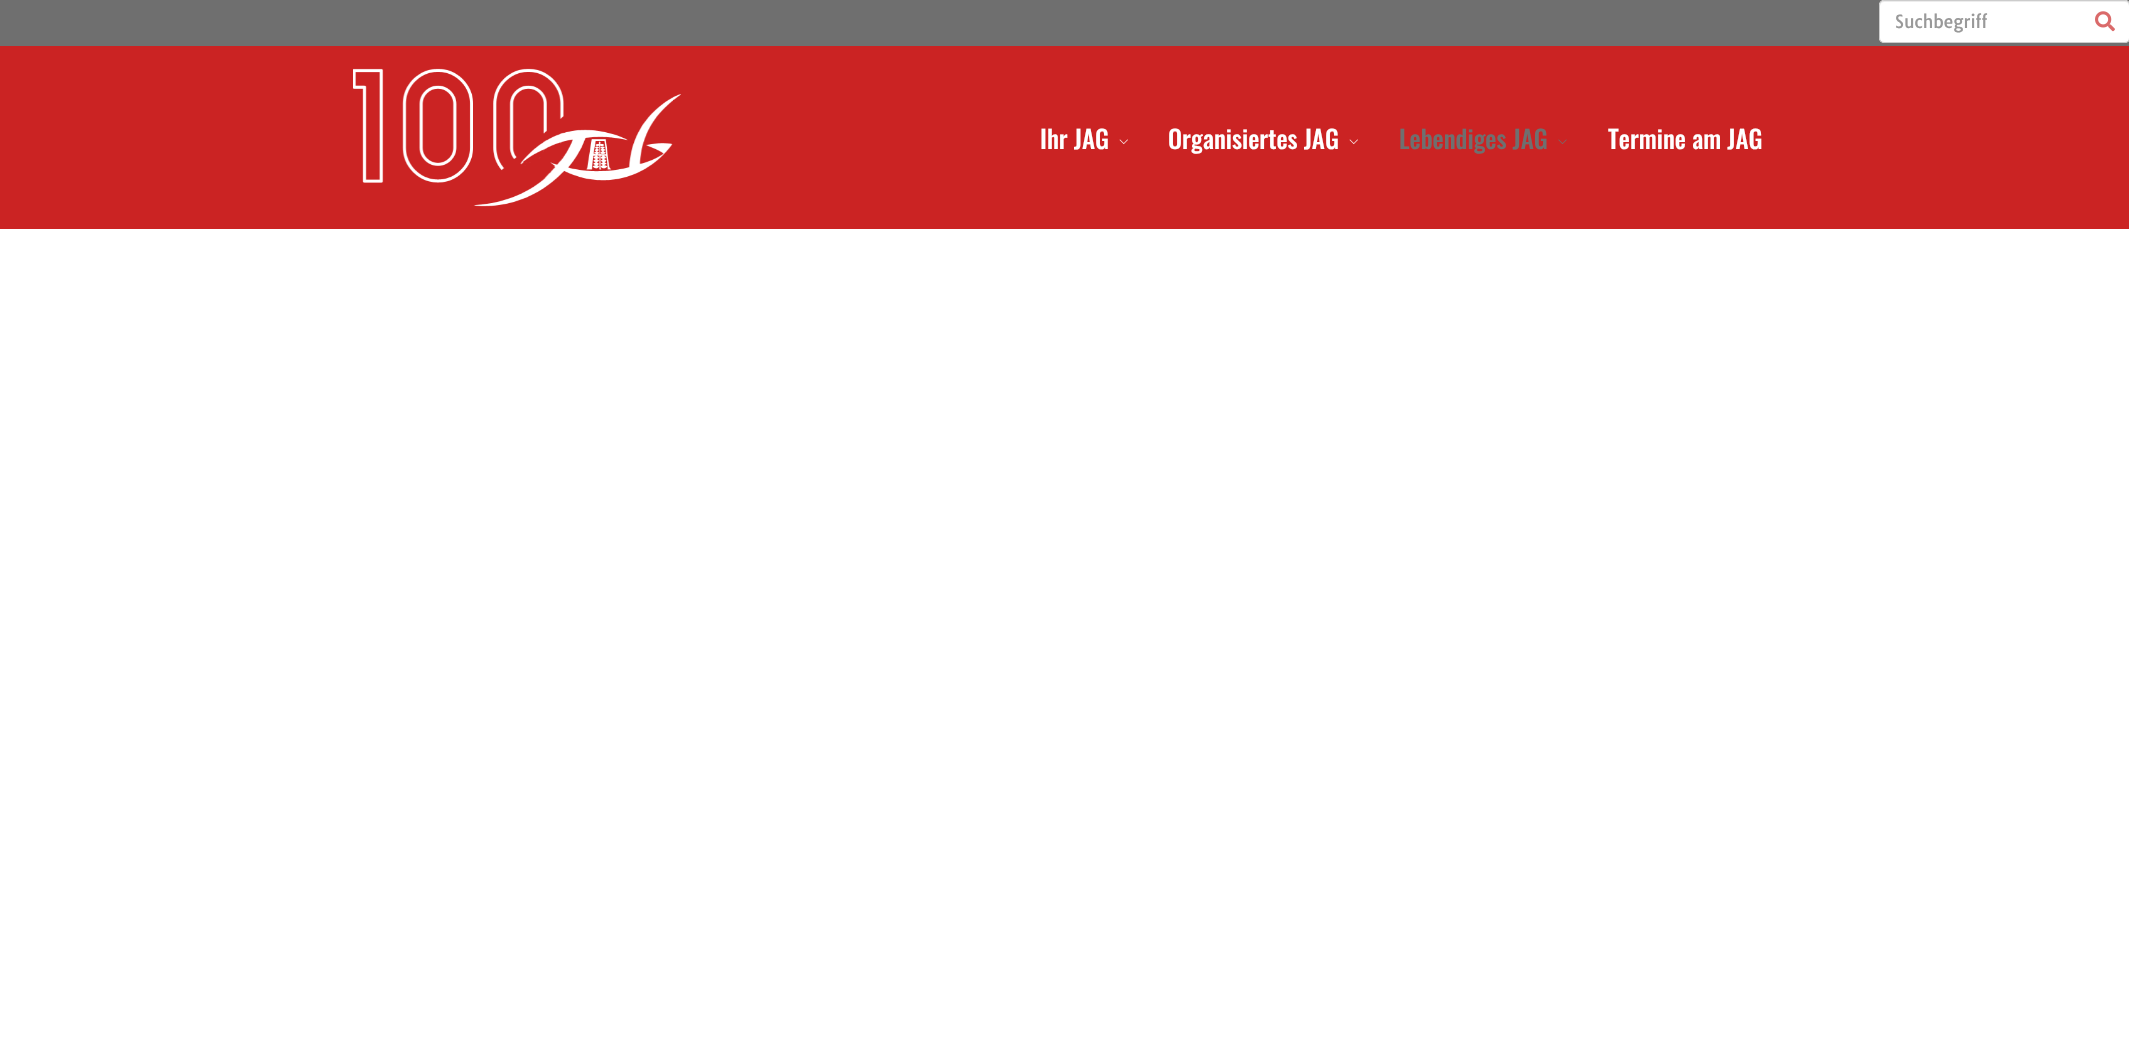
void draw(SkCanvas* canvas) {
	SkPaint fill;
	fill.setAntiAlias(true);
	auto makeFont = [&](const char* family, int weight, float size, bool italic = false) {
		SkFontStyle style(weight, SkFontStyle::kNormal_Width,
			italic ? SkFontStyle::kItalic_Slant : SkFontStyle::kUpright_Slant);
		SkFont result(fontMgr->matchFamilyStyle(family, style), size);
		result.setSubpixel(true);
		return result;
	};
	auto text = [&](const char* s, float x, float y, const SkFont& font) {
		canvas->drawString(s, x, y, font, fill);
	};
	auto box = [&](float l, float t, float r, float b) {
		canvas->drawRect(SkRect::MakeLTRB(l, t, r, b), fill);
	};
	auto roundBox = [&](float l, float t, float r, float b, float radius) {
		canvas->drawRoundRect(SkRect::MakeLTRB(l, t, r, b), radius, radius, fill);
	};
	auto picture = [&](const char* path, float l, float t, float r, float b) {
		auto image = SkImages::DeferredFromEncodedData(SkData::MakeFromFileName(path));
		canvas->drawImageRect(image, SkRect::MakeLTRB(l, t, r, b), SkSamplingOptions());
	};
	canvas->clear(0xFFFFFFFF);
	fill.setColor(0xFF6F6F6F);
	box(0, 0, 2129, 46);
	fill.setColor(0xFFFFFFFF);
	roundBox(1879, 0, 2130, 43, 5);
	fill.setColor(0xFFECECEC);
	canvas->drawPath(SkPathBuilder().moveTo(1884, 2).lineTo(2125, 2).cubicTo(2127, 2, 2129, 4, 2129, 6).lineTo(2129, 5).cubicTo(2129, 3, 2127, 1, 2125, 1).lineTo(1884, 1).cubicTo(1882, 1, 1880, 3, 1880, 5).lineTo(1880, 6).cubicTo(1880, 4, 1882, 2, 1884, 2).close().detach(), fill);
	fill.setStyle(SkPaint::kStroke_Style);
	fill.setStrokeWidth(1);
	fill.setColor(0xFFCCCCCC);
	canvas->drawRoundRect(SkRect::MakeLTRB(1879.5f, 0.5f, 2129.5f, 42.5f), 4.5f, 4.5f, fill);
	picture("image0.png", 2095, 11, 2115, 32);
	fill.setStyle(SkPaint::kFill_Style);
	fill.setColor(0xFFCB2323);
	box(0, 46, 2129, 229);
	picture("image1.png", 353, 68, 681, 207);
	picture("image2.png", 1119, 139, 1128, 145);
	picture("image2.png", 1349, 139, 1358, 145);
	picture("image3.png", 1558, 139, 1567, 144);
	auto font1 = makeFont("Tauri", 400, 17.5f);
	fill.setColor(0xFF999999);
	text("Suchbegriff", 1895, 28, font1);
	auto font2 = makeFont("Oswald", 500, 25);
	fill.setColor(0xFFFFFFFF);
	text("Ihr JAG", 1040, 149, font2);
	text("Organisiertes JAG", 1168, 149, font2);
	fill.setColor(0xFF6F6F6F);
	text("Lebendiges JAG", 1399, 149, font2);
	fill.setColor(0xFFFFFFFF);
	text("Termine am JAG", 1608, 149, font2);
}
